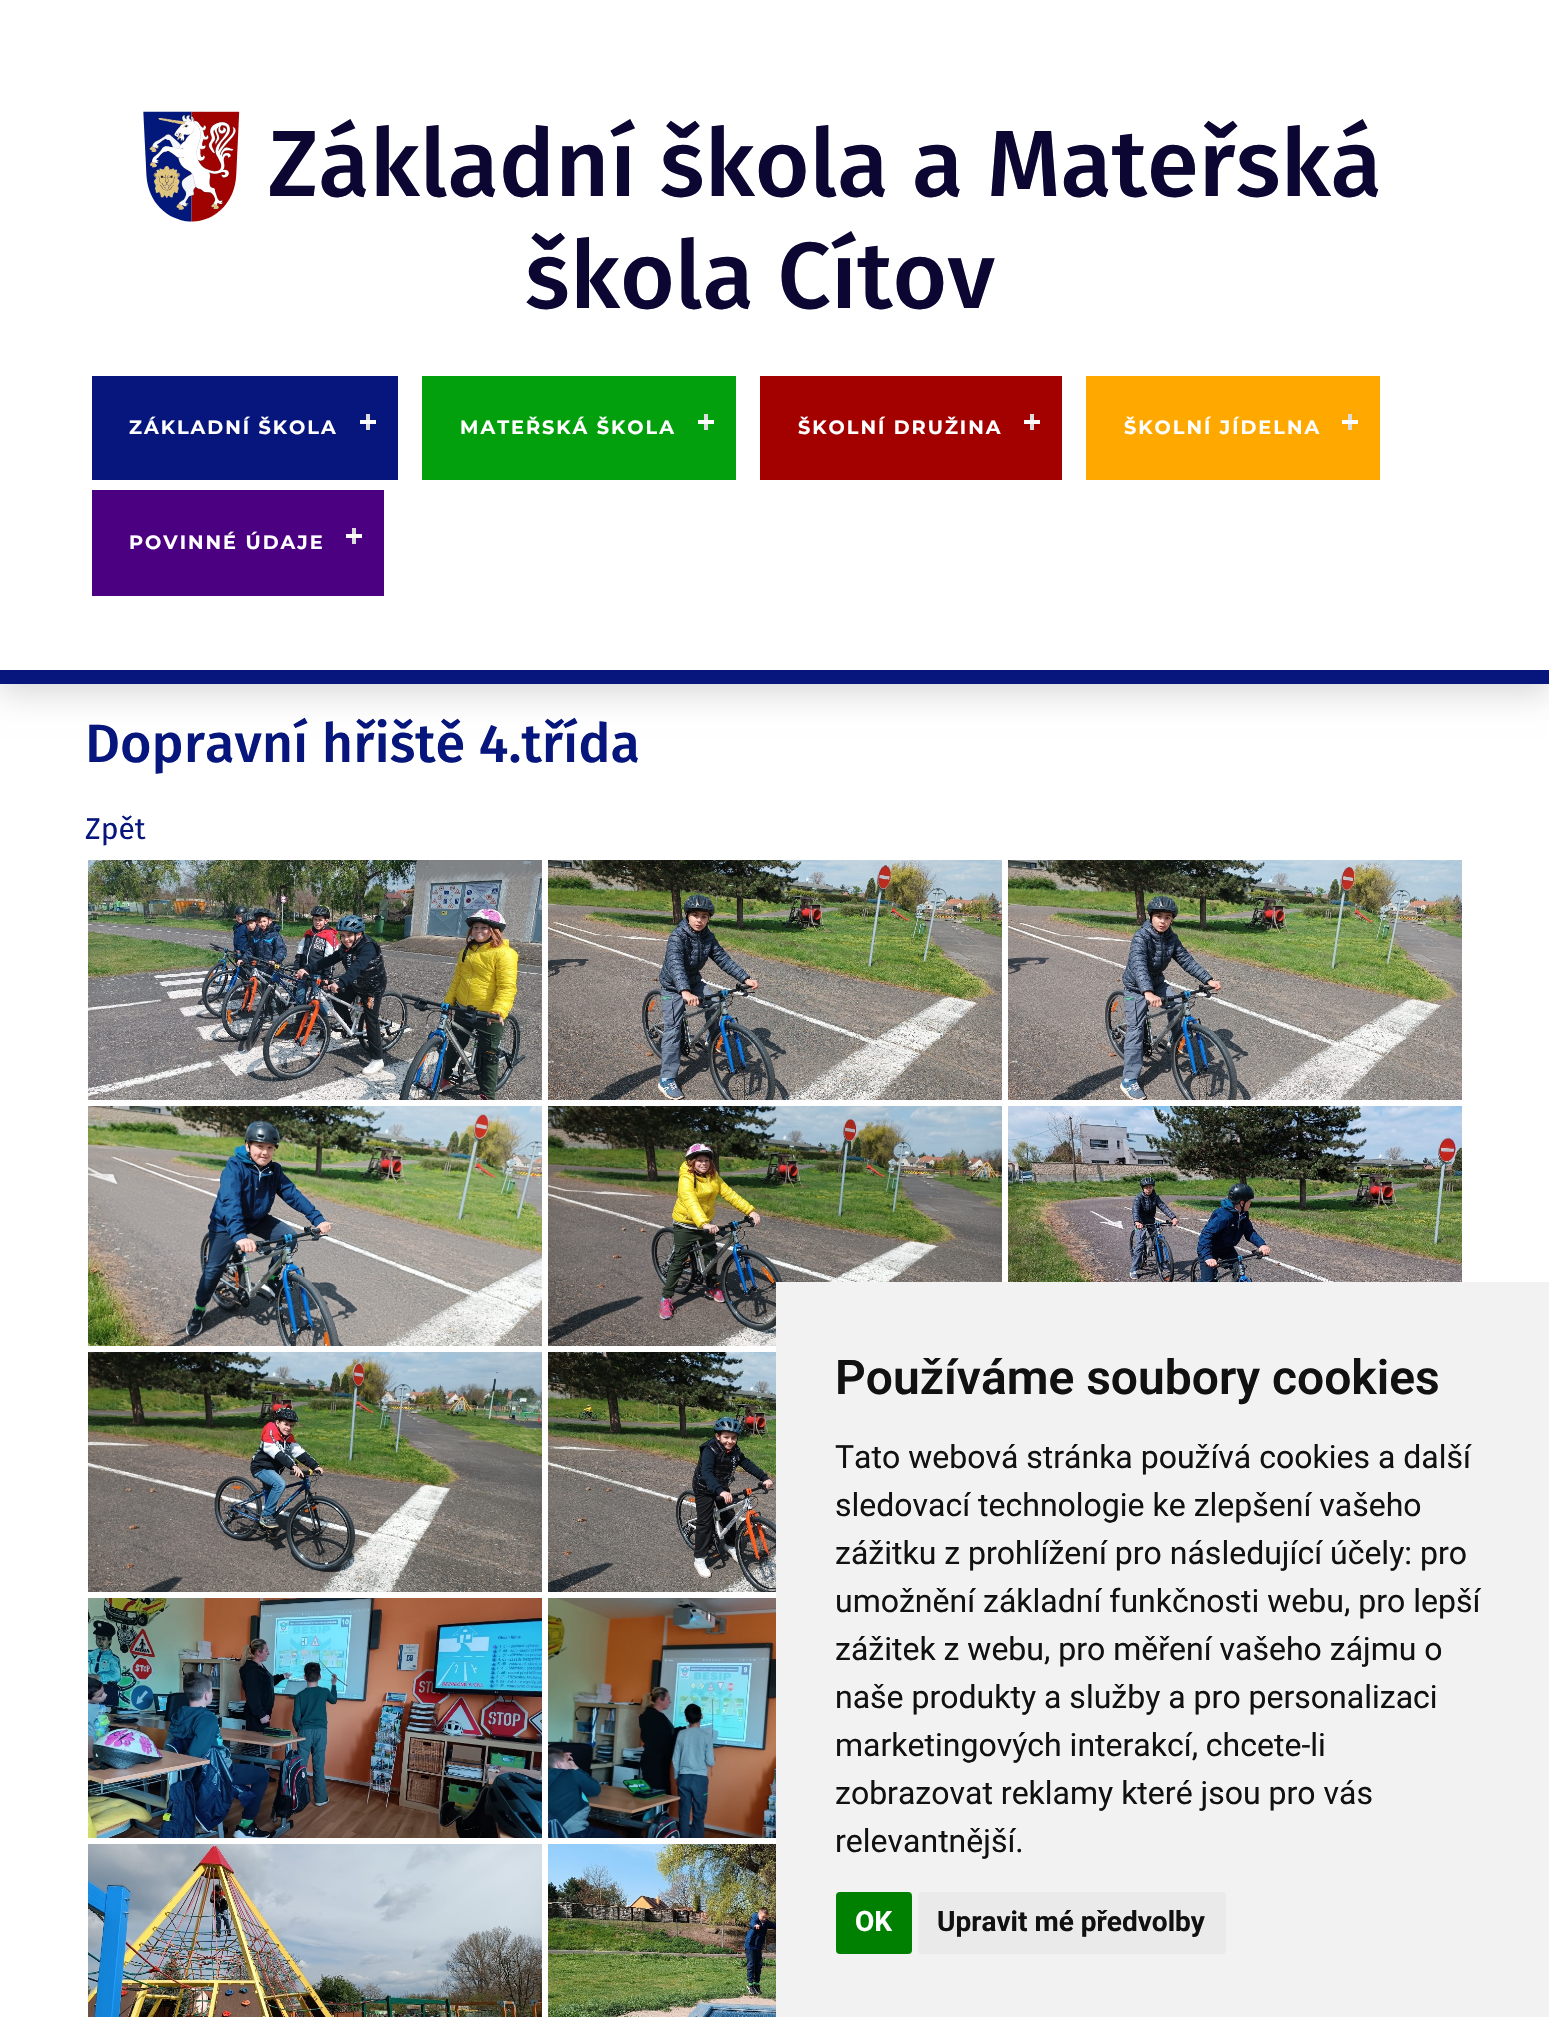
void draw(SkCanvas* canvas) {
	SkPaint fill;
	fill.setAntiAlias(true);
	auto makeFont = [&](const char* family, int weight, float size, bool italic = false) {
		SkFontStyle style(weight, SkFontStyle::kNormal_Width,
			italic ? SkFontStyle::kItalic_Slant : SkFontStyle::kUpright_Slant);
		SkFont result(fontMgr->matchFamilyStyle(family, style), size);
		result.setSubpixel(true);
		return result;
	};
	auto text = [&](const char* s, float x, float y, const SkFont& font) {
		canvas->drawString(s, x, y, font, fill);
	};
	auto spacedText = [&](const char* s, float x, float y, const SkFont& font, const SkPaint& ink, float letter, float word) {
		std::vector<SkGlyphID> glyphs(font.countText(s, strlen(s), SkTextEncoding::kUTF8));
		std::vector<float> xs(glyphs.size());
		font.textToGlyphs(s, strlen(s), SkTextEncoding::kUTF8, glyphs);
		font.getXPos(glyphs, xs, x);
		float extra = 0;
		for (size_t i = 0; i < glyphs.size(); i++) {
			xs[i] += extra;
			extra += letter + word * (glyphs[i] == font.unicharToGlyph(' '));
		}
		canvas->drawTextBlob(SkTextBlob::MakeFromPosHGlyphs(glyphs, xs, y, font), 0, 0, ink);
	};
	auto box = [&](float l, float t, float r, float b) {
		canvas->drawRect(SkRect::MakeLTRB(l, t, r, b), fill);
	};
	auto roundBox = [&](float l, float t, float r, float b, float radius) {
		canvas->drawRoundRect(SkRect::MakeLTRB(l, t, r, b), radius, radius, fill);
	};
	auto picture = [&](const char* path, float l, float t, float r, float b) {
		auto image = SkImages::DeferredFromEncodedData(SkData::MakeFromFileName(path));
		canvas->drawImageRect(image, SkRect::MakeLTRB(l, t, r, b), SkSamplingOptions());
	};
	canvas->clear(0xFFFFFFFF);
	fill.setColor(0x26000000);
	fill.setMaskFilter(SkMaskFilter::MakeBlur(kNormal_SkBlurStyle, 15));
	canvas->drawRect(SkRect::MakeLTRB(0, 10, 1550, 694), fill);
	fill.setMaskFilter(nullptr);
	fill.setColor(0xFFFFFFFF);
	box(0, 0, 1549, 670);
	fill.setColor(0xFF07167D);
	box(0, 670, 1549, 684);
	picture("image0.png", 143, 111, 240, 222);
	box(92, 376, 398, 480);
	fill.setColor(0xFFDDDDDD);
	box(366, 414, 370, 430);
	fill.setColor(0xFFFFFFFF);
	box(360, 420, 376, 424);
	fill.setColor(0xFF01A00C);
	box(422, 376, 736, 480);
	fill.setColor(0xFFDDDDDD);
	box(704, 414, 708, 430);
	fill.setColor(0xFFFFFFFF);
	box(698, 420, 714, 424);
	fill.setColor(0xFFA30100);
	box(760, 376, 1062, 480);
	fill.setColor(0xFFDDDDDD);
	box(1030, 414, 1034, 430);
	fill.setColor(0xFFFFFFFF);
	box(1024, 420, 1040, 424);
	fill.setColor(0xFFFFA800);
	box(1086, 376, 1380, 480);
	fill.setColor(0xFFDDDDDD);
	box(1348, 414, 1352, 430);
	fill.setColor(0xFFFFFFFF);
	box(1342, 420, 1358, 424);
	fill.setColor(0xFF4B0082);
	box(92, 490, 384, 596);
	fill.setColor(0xFFDDDDDD);
	box(352, 528, 356, 544);
	fill.setColor(0xFFFFFFFF);
	box(346, 534, 362, 538);
	picture("image1.png", 88, 860, 542, 1100);
	picture("image2.png", 548, 860, 1002, 1100);
	picture("image3.png", 1008, 860, 1462, 1100);
	picture("image4.png", 88, 1106, 542, 1346);
	picture("image5.png", 548, 1106, 1002, 1346);
	picture("image6.png", 1008, 1106, 1462, 1282);
	picture("image7.png", 88, 1352, 542, 1592);
	picture("image8.png", 548, 1352, 776, 1592);
	picture("image9.png", 88, 1598, 542, 1838);
	picture("image10.png", 548, 1598, 776, 1838);
	picture("image11.png", 88, 1844, 542, 2017);
	picture("image12.png", 548, 1844, 776, 2017);
	fill.setColor(0xFFF2F2F2);
	box(776, 1282, 1549, 2017);
	fill.setColor(0xFF008000);
	roundBox(836, 1892, 912, 1954, 4);
	fill.setColor(0xFFEAEAEA);
	roundBox(918, 1892, 1226, 1954, 4);
	auto font1 = makeFont("Fira Sans", 500, 94);
	fill.setColor(0xFF0C0633);
	text("Základní škola a Mateřská", 268, 196, font1);
	text("škola Cítov", 525, 308, font1);
	auto font2 = makeFont("Montserrat", 700, 19.25f);
	fill.setColor(0xFFFFFFFF);
	spacedText("ZÁKLADNÍ ŠKOLA", 129, 434, font2, fill, 2, 0);
	spacedText("MATEŘSKÁ ŠKOLA", 460, 434, font2, fill, 2, 0);
	spacedText("ŠKOLNÍ DRUŽINA", 798, 434, font2, fill, 2, 0);
	spacedText("ŠKOLNÍ JÍDELNA", 1124, 434, font2, fill, 2, 0);
	spacedText("POVINNÉ ÚDAJE", 129, 549, font2, fill, 2, 0);
	auto font3 = makeFont("Fira Sans", 500, 54);
	fill.setColor(0xFF07167D);
	text("Dopravní hřiště 4.třída", 85, 762, font3);
	auto font4 = makeFont("Fira Sans", 400, 30);
	text("Zpět", 85, 839, font4);
	auto font5 = makeFont("Roboto", 600, 48);
	fill.setColor(0xFF111111);
	text("Používáme soubory cookies", 835, 1394, font5);
	auto font6 = makeFont("Roboto", 400, 32);
	text("Tato webová stránka používá cookies a další", 835, 1468, font6);
	text("sledovací technologie ke zlepšení vašeho", 835, 1516, font6);
	text("zážitku z prohlížení pro následující účely: pro", 835, 1564, font6);
	text("umožnění základní funkčnosti webu, pro lepší", 835, 1612, font6);
	text("zážitek z webu, pro měření vašeho zájmu o", 835, 1660, font6);
	text("naše produkty a služby a pro personalizaci", 835, 1708, font6);
	text("marketingových interakcí, chcete-li", 835, 1756, font6);
	text("zobrazovat reklamy které jsou pro vás", 835, 1804, font6);
	text("relevantnější.", 835, 1852, font6);
	auto font7 = makeFont("Roboto", 700, 28);
	fill.setColor(0xFFFFFFFF);
	text("OK", 855, 1931, font7);
	fill.setColor(0xFF111111);
	text("Upravit mé předvolby", 937, 1931, font7);
}
